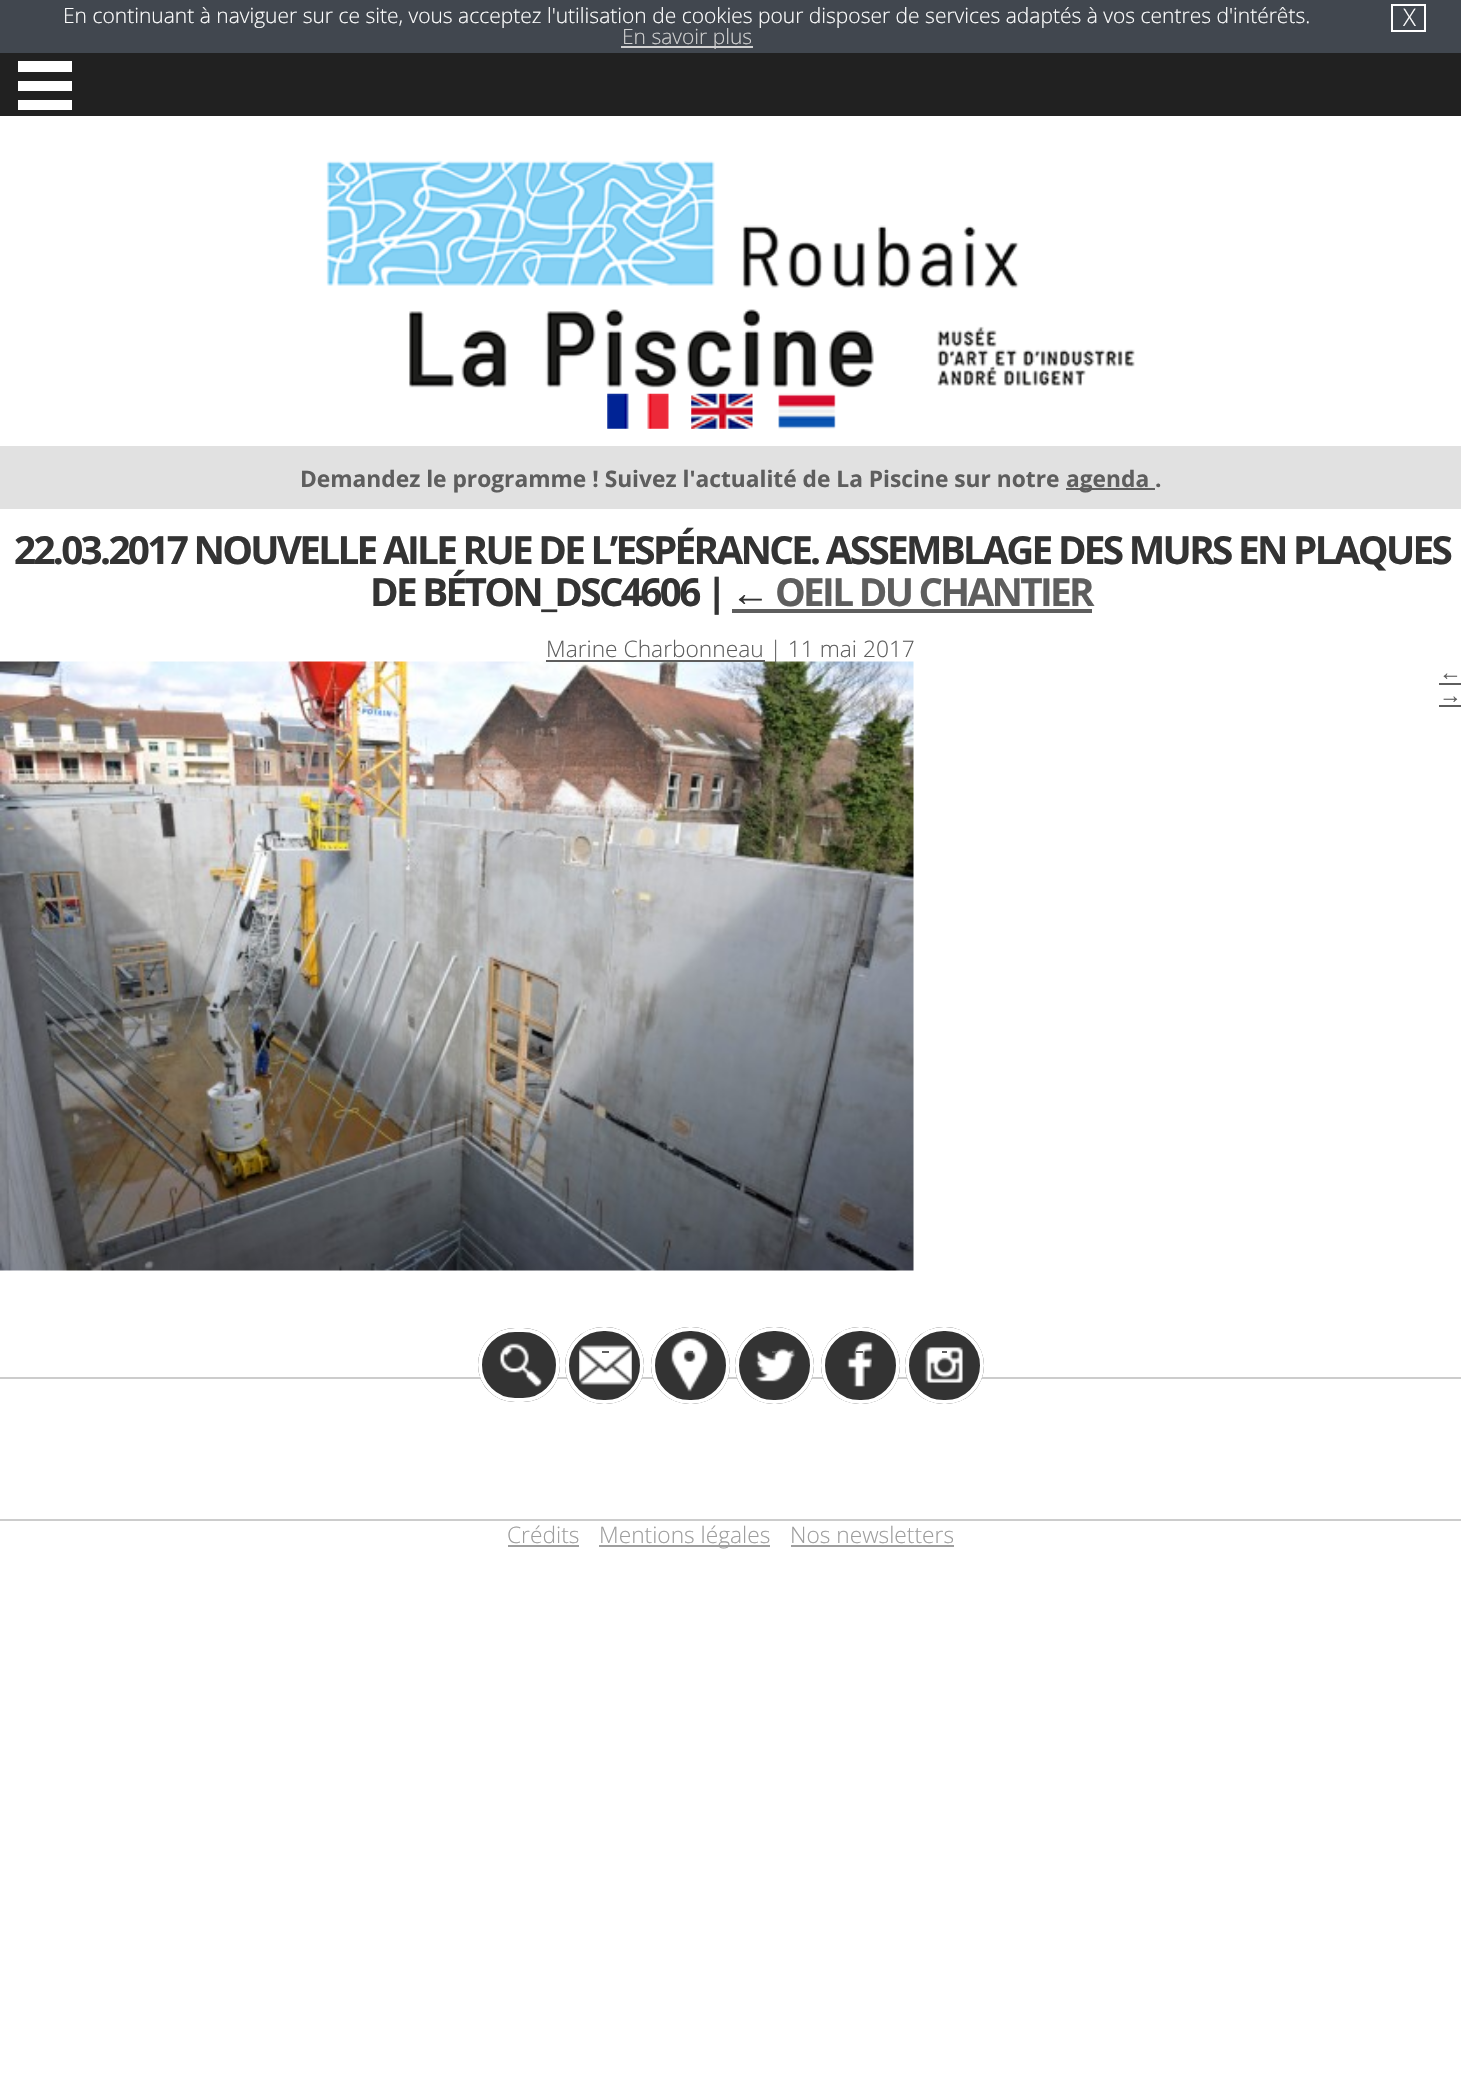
void draw(SkCanvas* canvas) {
	SkPaint fill;
	fill.setAntiAlias(true);
	auto makeFont = [&](const char* family, int weight, float size, bool italic = false) {
		SkFontStyle style(weight, SkFontStyle::kNormal_Width,
			italic ? SkFontStyle::kItalic_Slant : SkFontStyle::kUpright_Slant);
		SkFont result(fontMgr->matchFamilyStyle(family, style), size);
		result.setSubpixel(true);
		return result;
	};
	auto text = [&](const char* s, float x, float y, const SkFont& font) {
		canvas->drawString(s, x, y, font, fill);
	};
	auto spacedText = [&](const char* s, float x, float y, const SkFont& font, const SkPaint& ink, float letter, float word) {
		std::vector<SkGlyphID> glyphs(font.countText(s, strlen(s), SkTextEncoding::kUTF8));
		std::vector<float> xs(glyphs.size());
		font.textToGlyphs(s, strlen(s), SkTextEncoding::kUTF8, glyphs);
		font.getXPos(glyphs, xs, x);
		float extra = 0;
		for (size_t i = 0; i < glyphs.size(); i++) {
			xs[i] += extra;
			extra += letter + word * (glyphs[i] == font.unicharToGlyph(' '));
		}
		canvas->drawTextBlob(SkTextBlob::MakeFromPosHGlyphs(glyphs, xs, y, font), 0, 0, ink);
	};
	auto box = [&](float l, float t, float r, float b) {
		canvas->drawRect(SkRect::MakeLTRB(l, t, r, b), fill);
	};
	auto roundBox = [&](float l, float t, float r, float b, float radius) {
		canvas->drawRoundRect(SkRect::MakeLTRB(l, t, r, b), radius, radius, fill);
	};
	auto picture = [&](const char* path, float l, float t, float r, float b) {
		auto image = SkImages::DeferredFromEncodedData(SkData::MakeFromFileName(path));
		canvas->drawImageRect(image, SkRect::MakeLTRB(l, t, r, b), SkSamplingOptions());
	};
	canvas->clear(0xFFFFFFFF);
	fill.setColor(0xFF41474F);
	box(0, 0, 1461, 53);
	fill.setStyle(SkPaint::kStroke_Style);
	fill.setStrokeWidth(2);
	fill.setColor(0xFFFFFFFF);
	canvas->drawRect(SkRect::MakeLTRB(1392, 5, 1425, 31), fill);
	fill.setStyle(SkPaint::kFill_Style);
	fill.setColor(0xFFD1D1D1);
	box(621, 46, 753, 48);
	fill.setColor(0xFF212121);
	box(0, 53, 1461, 116);
	fill.setColor(0xFFFFFFFF);
	box(18, 61, 72, 72);
	box(18, 81, 72, 91);
	box(18, 100, 72, 110);
	picture("image0.png", 326, 160, 1135, 388);
	picture("image1.png", 607, 393, 669, 429);
	picture("image2.png", 691, 393, 753, 429);
	picture("image3.png", 778, 393, 836, 429);
	fill.setColor(0xFFE1E1E1);
	box(0, 446, 1461, 509);
	fill.setColor(0xFF5E5E5E);
	box(1066, 488, 1155, 490);
	box(732, 609, 1092, 613);
	picture("image4.png", 0, 661, 914, 1271);
	box(546, 660, 765, 662);
	box(1439, 683, 1461, 685);
	box(1439, 705, 1461, 707);
	fill.setColor(0xFFCCCCCC);
	box(0, 1377, 1461, 1379);
	fill.setColor(0xFF333333);
	roundBox(478, 1328, 560, 1402, 37);
	picture("image5.png", 499, 1343, 543, 1387);
	fill.setStyle(SkPaint::kStroke_Style);
	fill.setStrokeWidth(4);
	fill.setColor(0xFFFFFFFF);
	canvas->drawRoundRect(SkRect::MakeLTRB(480, 1330, 558, 1400), 35, 35, fill);
	fill.setStyle(SkPaint::kFill_Style);
	fill.setColor(0xFF333333);
	roundBox(565, 1327, 644, 1404, 38.5f);
	picture("image6.png", 579, 1345, 632, 1385);
	fill.setStyle(SkPaint::kStroke_Style);
	fill.setColor(0xFFFFFFFF);
	canvas->drawRoundRect(SkRect::MakeLTRB(567, 1329, 642, 1402), 36.5f, 36.5f, fill);
	fill.setStyle(SkPaint::kFill_Style);
	fill.setColor(0xFF5E5E5E);
	box(602, 1351, 609, 1353);
	fill.setColor(0xFF333333);
	roundBox(651, 1327, 730, 1404, 38.5f);
	picture("image7.png", 671, 1338, 708, 1392);
	fill.setStyle(SkPaint::kStroke_Style);
	fill.setColor(0xFFFFFFFF);
	canvas->drawRoundRect(SkRect::MakeLTRB(653, 1329, 728, 1402), 36.5f, 36.5f, fill);
	fill.setStyle(SkPaint::kFill_Style);
	fill.setColor(0xFF5E5E5E);
	box(688, 1351, 693, 1353);
	fill.setColor(0xFF333333);
	roundBox(735, 1327, 814, 1404, 38.5f);
	picture("image8.png", 755, 1348, 795, 1382);
	fill.setStyle(SkPaint::kStroke_Style);
	fill.setColor(0xFFFFFFFF);
	canvas->drawRoundRect(SkRect::MakeLTRB(737, 1329, 812, 1402), 36.5f, 36.5f, fill);
	fill.setStyle(SkPaint::kFill_Style);
	fill.setColor(0xFF5E5E5E);
	box(772, 1351, 777, 1353);
	fill.setColor(0xFF333333);
	roundBox(821, 1327, 900, 1404, 38.5f);
	picture("image9.png", 847, 1342, 874, 1387);
	fill.setStyle(SkPaint::kStroke_Style);
	fill.setColor(0xFFFFFFFF);
	canvas->drawRoundRect(SkRect::MakeLTRB(823, 1329, 898, 1402), 36.5f, 36.5f, fill);
	fill.setStyle(SkPaint::kFill_Style);
	fill.setColor(0xFF5E5E5E);
	box(856, 1351, 863, 1353);
	fill.setColor(0xFF333333);
	roundBox(905, 1327, 984, 1404, 38.5f);
	picture("image10.png", 925, 1347, 963, 1383);
	fill.setStyle(SkPaint::kStroke_Style);
	fill.setColor(0xFFFFFFFF);
	canvas->drawRoundRect(SkRect::MakeLTRB(907, 1329, 982, 1402), 36.5f, 36.5f, fill);
	fill.setStyle(SkPaint::kFill_Style);
	fill.setColor(0xFF5E5E5E);
	box(942, 1351, 947, 1353);
	fill.setColor(0xFFCCCCCC);
	box(0, 1519, 1461, 1521);
	fill.setColor(0xFF9E9E9E);
	box(508, 1545, 579, 1547);
	box(599, 1545, 770, 1547);
	box(791, 1545, 954, 1547);
	auto font1 = makeFont("Open Sans", 300, 21);
	fill.setColor(0xFFFFFFFF);
	text("En continuant à naviguer sur ce site, vous acceptez l'utilisation de cookies pour disposer de services adaptés à vos centres d'intérêts.", 63, 23, font1);
	auto font2 = makeFont("Open Sans", 300, 24);
	text("X", 1403, 26, font2);
	fill.setColor(0xFFD1D1D1);
	text("En savoir plus", 622, 44, font1);
	auto font3 = makeFont("Open Sans", 700, 22.75f);
	fill.setColor(0xFF5E5E5E);
	text("Demandez le programme ! Suivez l'actualité de La Piscine sur notre", 300, 487, font3);
	text("agenda .", 1066, 487, font3);
	auto font4 = makeFont("Open Sans", 700, 38.7f);
	fill.setColor(0xFF333333);
	spacedText("22.03.2017 NOUVELLE AILE RUE DE L’ESPÉRANCE. ASSEMBLAGE DES MURS EN PLAQUES", 14, 564, font4, fill, -2.7f, 0);
	spacedText("DE BÉTON_DSC4606 |", 370, 606, font4, fill, -2.7f, 0);
	auto font5 = makeFont("Liberation Sans", 700, 38.7f);
	spacedText("←", 731, 606, font5, fill, -2.7f, 0);
	fill.setColor(0xFF5E5E5E);
	spacedText("OEIL DU CHANTIER", 775, 606, font4, fill, -2.7f, 0);
	auto font6 = makeFont("Open Sans", 300, 22.75f);
	text("Marine Charbonneau | 11 mai 2017", 546, 657, font6);
	auto font7 = makeFont("Liberation Sans", 400, 22.75f);
	text("←", 1439, 680, font7);
	text("→", 1439, 703, font7);
	fill.setColor(0xFF9E9E9E);
	text("Crédits", 507, 1543, font6);
	text("Mentions légales", 599, 1543, font6);
	text("Nos newsletters", 790, 1543, font6);
}
